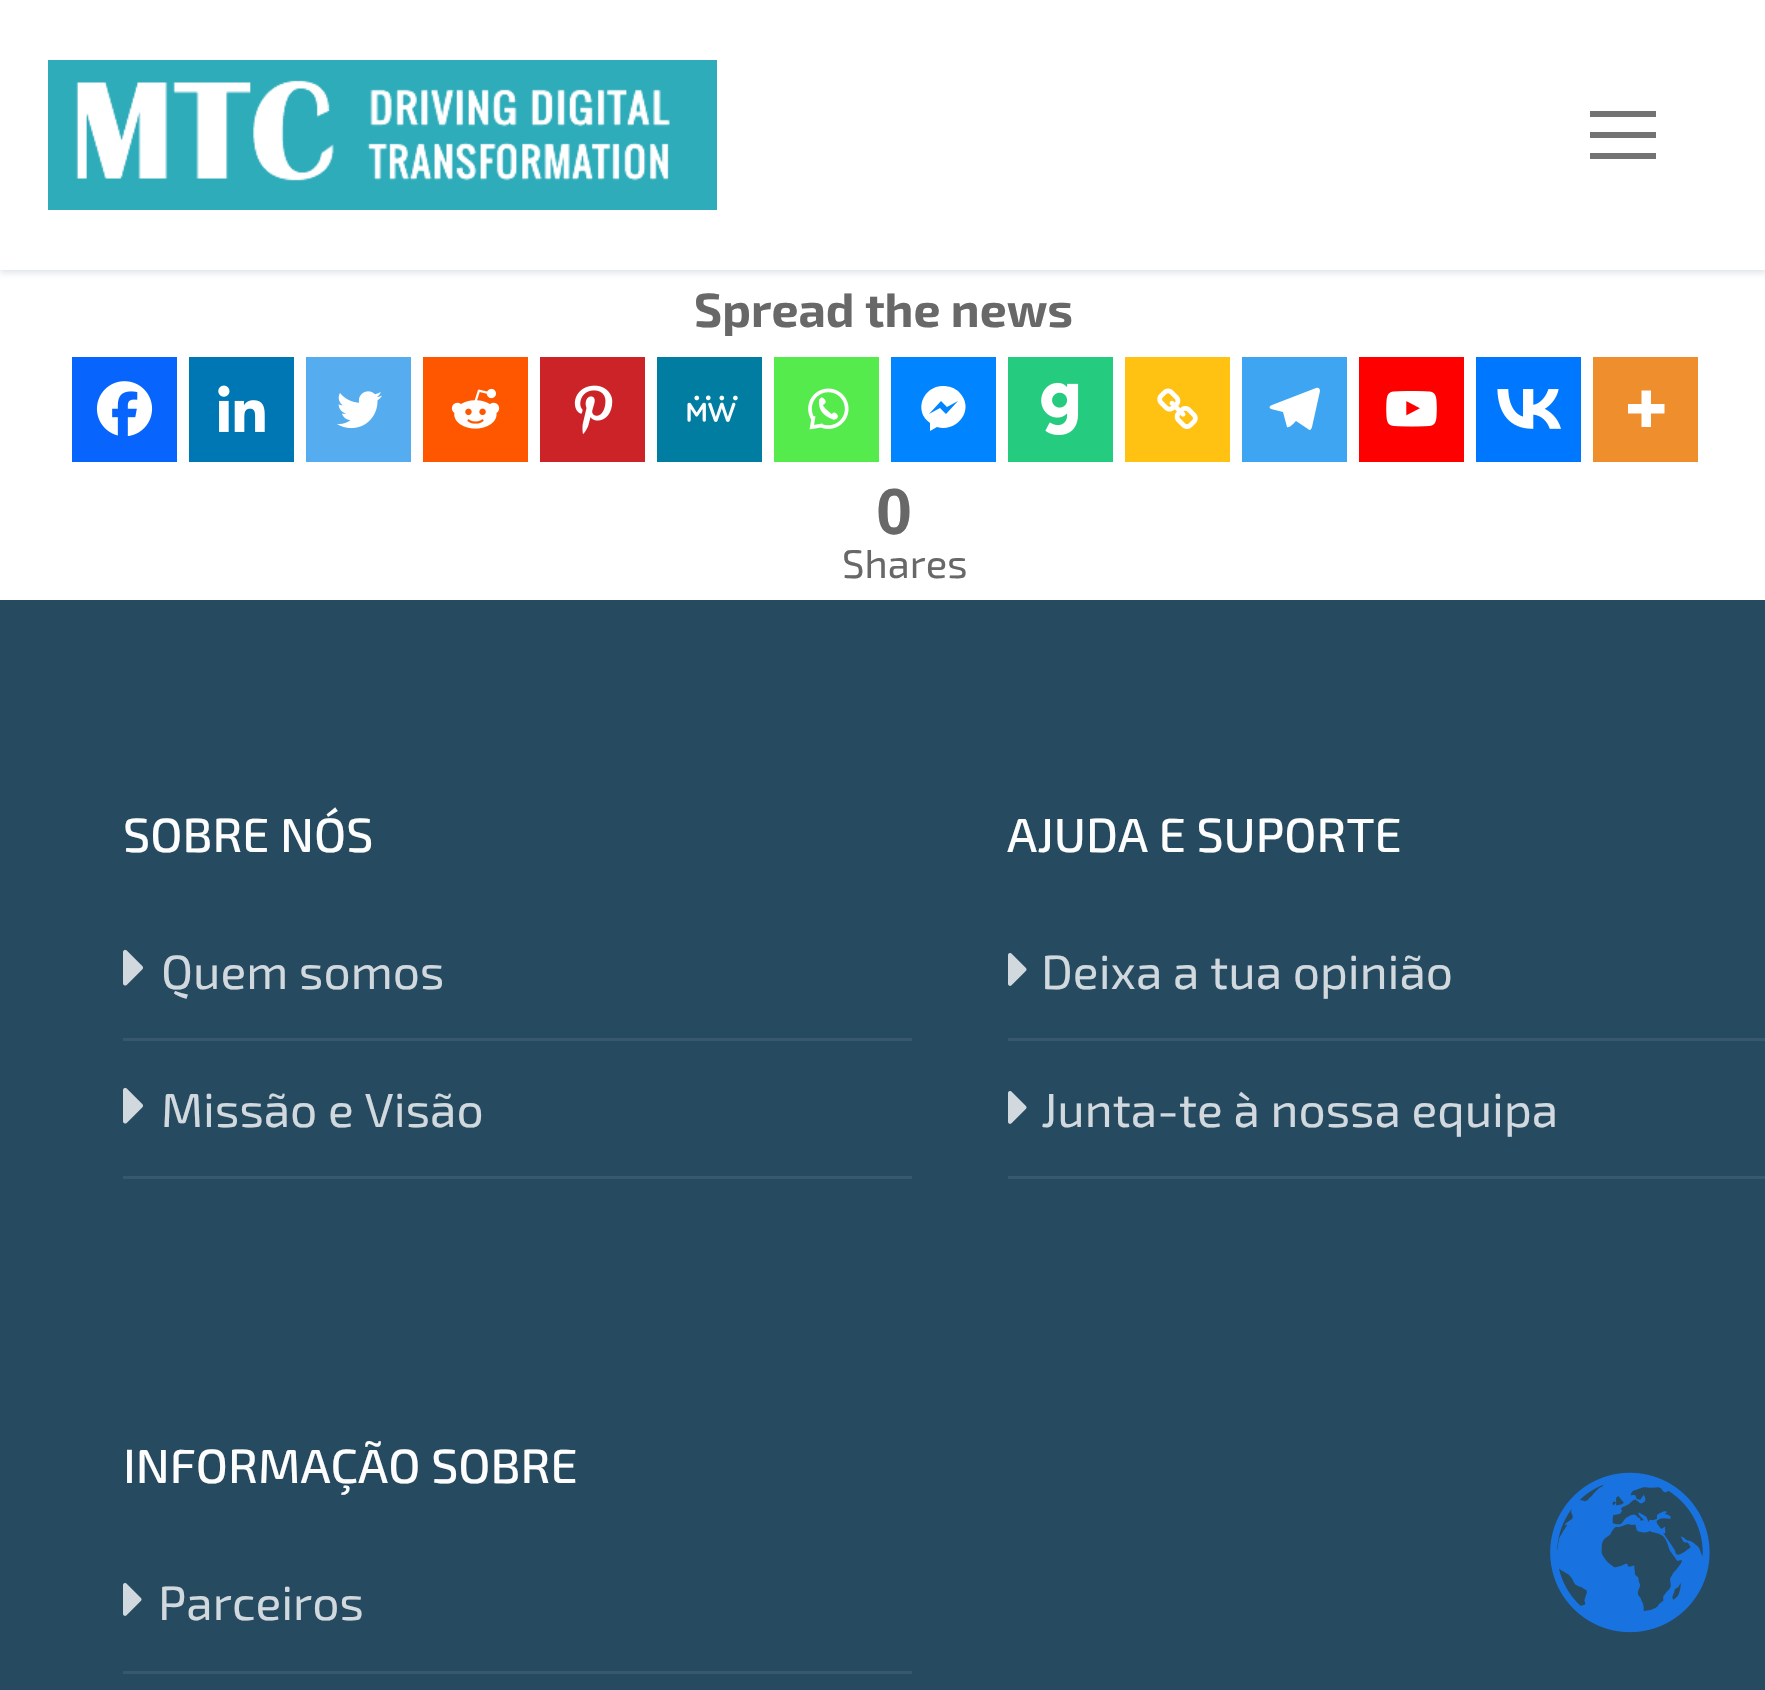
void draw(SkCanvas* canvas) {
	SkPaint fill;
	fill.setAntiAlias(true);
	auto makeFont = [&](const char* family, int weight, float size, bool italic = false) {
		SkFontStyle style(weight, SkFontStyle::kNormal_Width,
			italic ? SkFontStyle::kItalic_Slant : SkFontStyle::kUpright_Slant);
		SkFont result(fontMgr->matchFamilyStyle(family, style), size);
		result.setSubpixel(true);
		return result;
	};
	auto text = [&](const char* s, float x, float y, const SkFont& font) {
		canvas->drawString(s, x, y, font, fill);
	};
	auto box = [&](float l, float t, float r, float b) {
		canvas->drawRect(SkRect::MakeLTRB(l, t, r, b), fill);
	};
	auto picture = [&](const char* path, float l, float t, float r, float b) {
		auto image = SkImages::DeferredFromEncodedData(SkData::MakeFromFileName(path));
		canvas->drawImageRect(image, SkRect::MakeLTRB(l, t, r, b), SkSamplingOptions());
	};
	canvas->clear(0xFFFFFFFF);
	canvas->save();
	canvas->clipRect(SkRect::MakeLTRB(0, 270, 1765, 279));
	fill.setColor(0xFFE1E5EA);
	fill.setMaskFilter(SkMaskFilter::MakeBlur(kNormal_SkBlurStyle, 3));
	canvas->drawRect(SkRect::MakeLTRB(0, 3, 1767, 273), fill);
	fill.setMaskFilter(nullptr);
	canvas->restore();
	picture("image0.png", 48, 60, 717, 210);
	fill.setColor(0xFF737373);
	box(1590, 132, 1656, 138);
	box(1590, 111, 1656, 117);
	box(1590, 153, 1656, 159);
	fill.setColor(0xFF0765FE);
	box(72, 357, 177, 462);
	picture("image1.png", 96, 381, 153, 436);
	fill.setColor(0xFF0077B5);
	box(189, 357, 294, 462);
	picture("image2.png", 218, 385, 265, 432);
	fill.setColor(0xFF55ACEE);
	box(306, 357, 411, 462);
	picture("image3.png", 337, 391, 382, 429);
	fill.setColor(0xFFFF5700);
	box(423, 357, 528, 462);
	picture("image4.png", 451, 388, 500, 429);
	fill.setColor(0xFFCC2329);
	box(540, 357, 645, 462);
	picture("image5.png", 574, 385, 613, 434);
	fill.setColor(0xFF007DA1);
	box(657, 357, 762, 462);
	picture("image6.png", 687, 395, 738, 422);
	fill.setColor(0xFF55EB4C);
	box(774, 357, 879, 462);
	picture("image7.png", 808, 388, 849, 430);
	fill.setColor(0xFF0084FF);
	box(891, 357, 996, 462);
	fill.setColor(0xFFFFFFFF);
	canvas->drawPath(SkPathBuilder().moveTo(943, 386).cubicTo(923, 386, 913, 411, 930, 423).lineTo(930, 431).lineTo(937, 427).cubicTo(957, 433, 976, 409, 959, 392).cubicTo(955, 388, 949, 386, 943, 386).close().moveTo(946, 414).lineTo(940, 408).lineTo(929, 414).lineTo(941, 401).lineTo(947, 407).lineTo(958, 401).close().detach(), fill);
	fill.setColor(0xFF25CC80);
	box(1008, 357, 1113, 462);
	picture("image8.png", 1041, 382, 1079, 435);
	fill.setColor(0xFFFFC112);
	box(1125, 357, 1230, 462);
	picture("image9.png", 1157, 388, 1198, 429);
	fill.setColor(0xFF3DA5F1);
	box(1242, 357, 1347, 462);
	fill.setColor(0xFFFFFFFF);
	canvas->drawPath(SkPathBuilder().moveTo(1316, 388).lineTo(1272, 405).cubicTo(1269, 406, 1269, 408, 1271, 409).lineTo(1283, 412).lineTo(1287, 427).cubicTo(1289, 429, 1295, 422, 1296, 421).lineTo(1308, 429).cubicTo(1310, 431, 1311, 430, 1312, 427).lineTo(1320, 391).cubicTo(1320, 388, 1318, 387, 1316, 388).close().detach(), fill);
	fill.setColor(0xFFFF0000);
	box(1359, 357, 1464, 462);
	picture("image10.png", 1386, 391, 1437, 427);
	fill.setColor(0xFF0077FF);
	box(1476, 357, 1581, 462);
	picture("image11.png", 1497, 389, 1561, 429);
	fill.setColor(0xFFEE8E2D);
	box(1593, 357, 1698, 462);
	fill.setColor(0xFFFFFFFF);
	canvas->drawPath(SkPathBuilder(SkPathFillType::kEvenOdd).moveTo(1651, 404).lineTo(1651, 390.5f).lineTo(1641.5f, 390.5f).lineTo(1641.5f, 404).lineTo(1628, 404).lineTo(1628, 413.5f).lineTo(1641.5f, 413.5f).lineTo(1641.5f, 427).lineTo(1651, 427).lineTo(1651, 413.5f).lineTo(1664.5f, 413.5f).lineTo(1664.5f, 404).close().detach(), fill);
	fill.setColor(0xFF264A60);
	box(0, 600, 1765, 1690);
	fill.setColor(0xFF37586D);
	box(123, 1038, 912, 1041);
	picture("image12.png", 123, 949, 143, 986);
	box(123, 1176, 912, 1179);
	picture("image12.png", 123, 1087, 143, 1124);
	box(1008, 1038, 1765, 1041);
	picture("image13.png", 1008, 953, 1027, 986);
	box(1008, 1176, 1765, 1179);
	picture("image13.png", 1008, 1091, 1027, 1124);
	box(123, 1671, 912, 1674);
	picture("image13.png", 123, 1583, 142, 1616);
	picture("image14.png", 1550, 1472, 1710, 1633);
	auto font1 = makeFont("Exo 2", 700, 48);
	fill.setColor(0xFF686868);
	text("Spread the news", 694, 327, font1);
	auto font2 = makeFont("Liberation Sans", 700, 65);
	text("0", 876, 534, font2);
	auto font3 = makeFont("Exo 2", 400, 40);
	text("Shares", 842, 578, font3);
	auto font4 = makeFont("Exo 2", 500, 48);
	fill.setColor(0xFFFDFDFD);
	text("SOBRE NÓS", 123, 852, font4);
	auto font5 = makeFont("Exo 2", 400, 48);
	fill.setColor(0xFFD1D9DE);
	text("Quem somos", 161, 989, font5);
	text("Missão e Visão", 161, 1127, font5);
	fill.setColor(0xFFFDFDFD);
	text("AJUDA E SUPORTE", 1007, 852, font4);
	fill.setColor(0xFFD1D9DE);
	text("Deixa a tua opinião", 1041, 989, font5);
	text("Junta-te à nossa equipa", 1041, 1127, font5);
	fill.setColor(0xFFFDFDFD);
	text("INFORMAÇÃO SOBRE", 123, 1483, font4);
	fill.setColor(0xFFD1D9DE);
	text("Parceiros", 158, 1620, font5);
}
